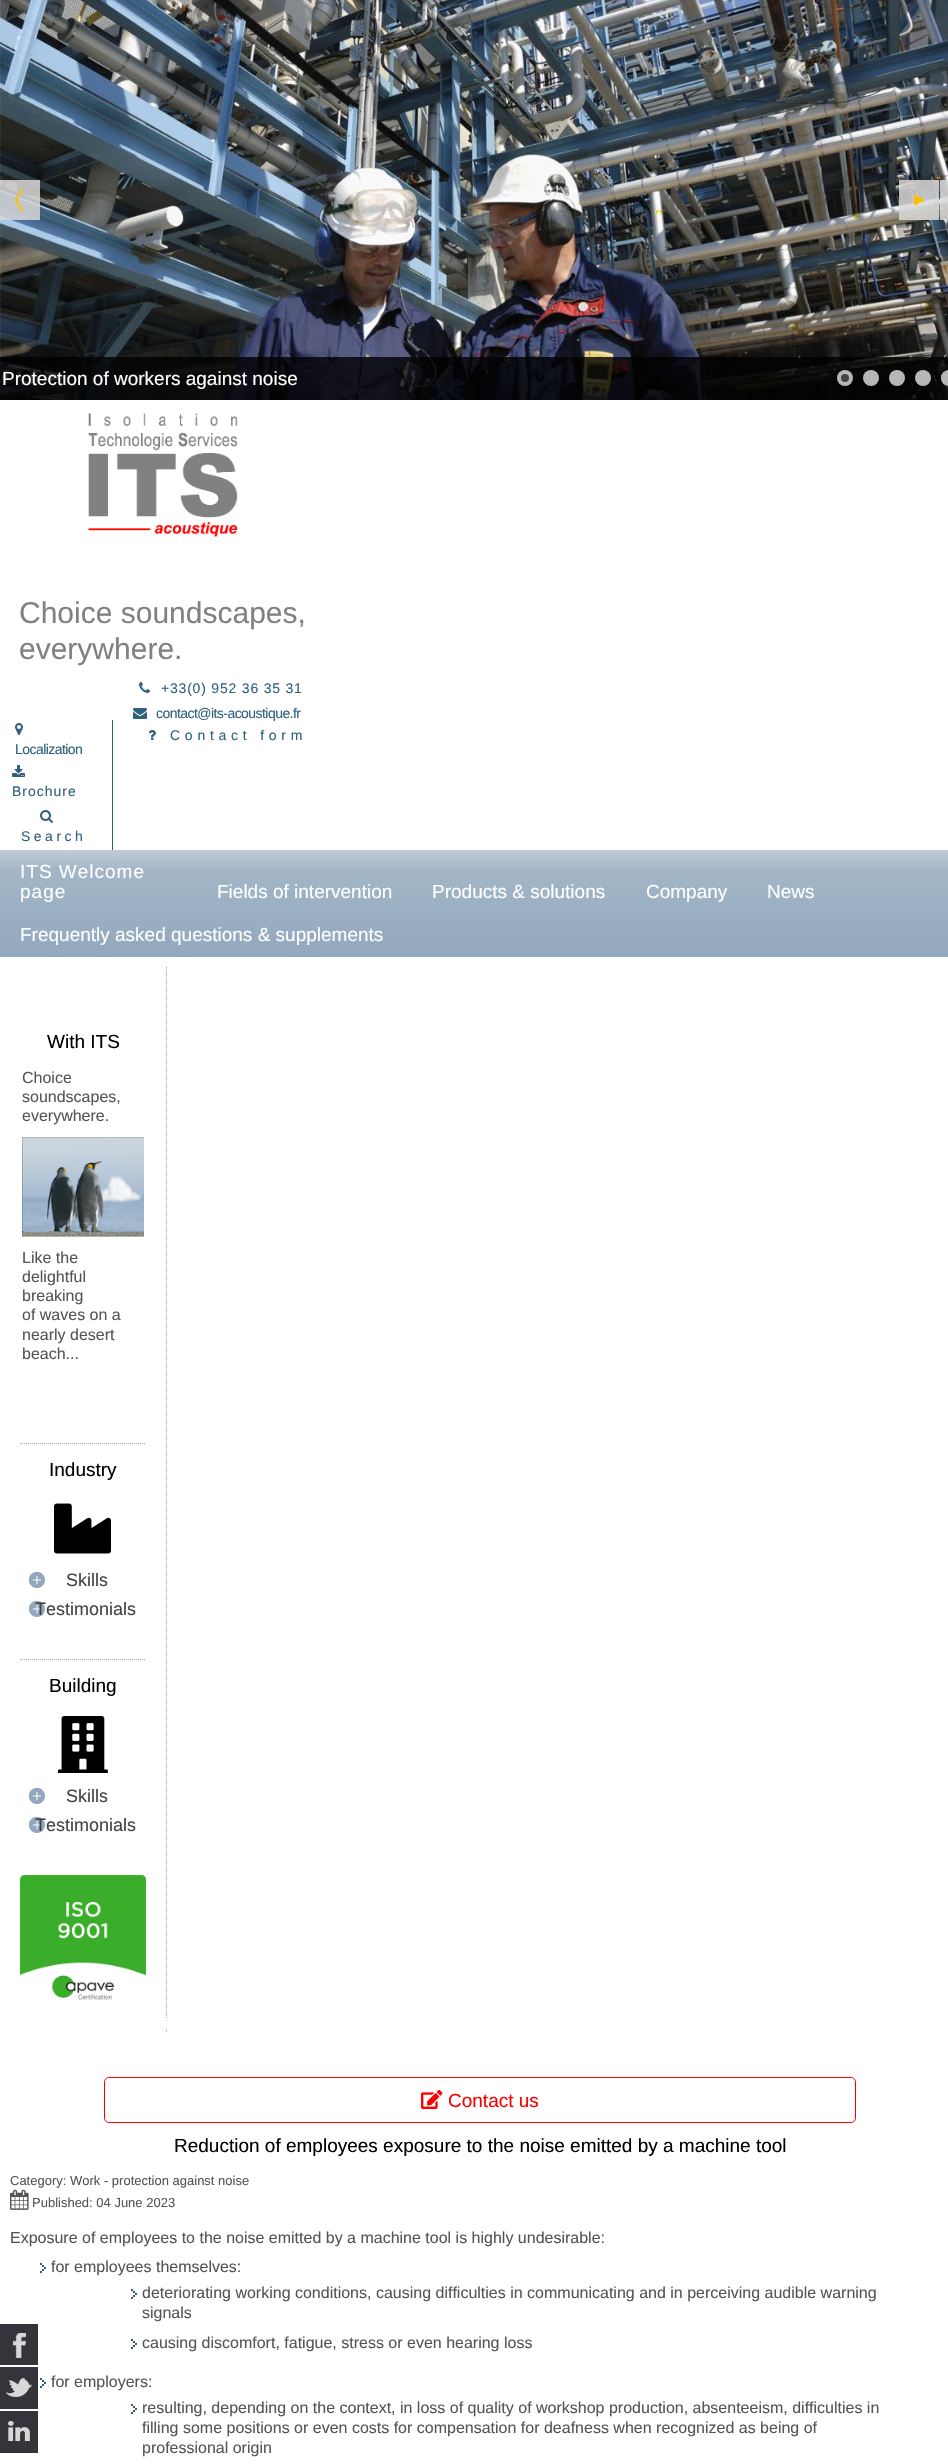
void draw(SkCanvas* canvas) {
	SkPaint fill;
	fill.setAntiAlias(true);
	auto makeFont = [&](const char* family, int weight, float size, bool italic = false) {
		SkFontStyle style(weight, SkFontStyle::kNormal_Width,
			italic ? SkFontStyle::kItalic_Slant : SkFontStyle::kUpright_Slant);
		SkFont result(fontMgr->matchFamilyStyle(family, style), size);
		result.setSubpixel(true);
		return result;
	};
	auto text = [&](const char* s, float x, float y, const SkFont& font) {
		canvas->drawString(s, x, y, font, fill);
	};
	auto spacedText = [&](const char* s, float x, float y, const SkFont& font, const SkPaint& ink, float letter, float word) {
		std::vector<SkGlyphID> glyphs(font.countText(s, strlen(s), SkTextEncoding::kUTF8));
		std::vector<float> xs(glyphs.size());
		font.textToGlyphs(s, strlen(s), SkTextEncoding::kUTF8, glyphs);
		font.getXPos(glyphs, xs, x);
		float extra = 0;
		for (size_t i = 0; i < glyphs.size(); i++) {
			xs[i] += extra;
			extra += letter + word * (glyphs[i] == font.unicharToGlyph(' '));
		}
		canvas->drawTextBlob(SkTextBlob::MakeFromPosHGlyphs(glyphs, xs, y, font), 0, 0, ink);
	};
	auto box = [&](float l, float t, float r, float b) {
		canvas->drawRect(SkRect::MakeLTRB(l, t, r, b), fill);
	};
	auto roundBox = [&](float l, float t, float r, float b, float radius) {
		canvas->drawRoundRect(SkRect::MakeLTRB(l, t, r, b), radius, radius, fill);
	};
	auto picture = [&](const char* path, float l, float t, float r, float b) {
		auto image = SkImages::DeferredFromEncodedData(SkData::MakeFromFileName(path));
		canvas->drawImageRect(image, SkRect::MakeLTRB(l, t, r, b), SkSamplingOptions());
	};
	canvas->clear(0xFFFFFFFF);
	picture("image0.png", 0, 0, 948, 400);
	fill.setColor(0xD9D8D8D8);
	box(0, 180, 40, 220);
	picture("image1.png", 15, 189, 24, 212);
	box(899, 180, 939, 220);
	picture("image2.png", 914, 194, 925, 206);
	box(940, 180, 948, 220);
	fill.setColor(0xCC000000);
	box(0, 357, 948, 400);
	fill.setColor(0xFFB7B7B7);
	canvas->drawCircle(845, 378, 8, fill);
	fill.setColor(0xFF434648);
	canvas->drawCircle(845, 378, 4, fill);
	fill.setColor(0xFFB7B7B7);
	canvas->drawCircle(871, 378, 8, fill);
	canvas->drawCircle(897, 378, 8, fill);
	canvas->drawCircle(923, 378, 8, fill);
	roundBox(941, 370, 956, 386, 8);
	picture("image3.png", 88, 413, 238, 537);
	picture("image4.png", 139, 682, 150, 693);
	picture("image5.png", 133, 708, 147, 719);
	picture("image6.png", 148, 730, 156, 740);
	fill.setColor(0xFF2F617F);
	box(112, 720, 113, 850);
	picture("image7.png", 15, 723, 23, 735);
	picture("image8.png", 12, 765, 25, 777);
	picture("image9.png", 40, 810, 53, 823);
	{
		const SkColor colors[] = {0xFFBECAD6, 0xFFA3B6C7, 0xFF92A8BE};
		const float stops[] = {0.01f, 0.19f, 1};
		const SkPoint ends[] = {{490, 850}, {490, 957}};
		fill.setShader(SkGradientShader::MakeLinear(ends, colors, stops, 3, SkTileMode::kClamp));
		fill.setAlpha(255);
	}
	box(0, 850, 948, 957);
	fill.setStyle(SkPaint::kStroke_Style);
	fill.setStrokeWidth(1);
	fill.setShader(nullptr);
	fill.setColor(0xFF94A9BF);
	fill.setPathEffect(SkDashPathEffect::Make({{1, 1}}, 0));
	canvas->drawPath(SkPathBuilder().moveTo(166.5f, 967).lineTo(166.5f, 2019).detach(), fill);
	fill.setPathEffect(nullptr);
	picture("image10.png", 22, 1137, 144, 1237);
	fill.setPathEffect(SkDashPathEffect::Make({{1, 1}}, 0));
	canvas->drawPath(SkPathBuilder().moveTo(20, 1443.5f).lineTo(146, 1443.5f).detach(), fill);
	fill.setPathEffect(nullptr);
	picture("image11.png", 54, 1503, 111, 1554);
	picture("image12.png", 29, 1572, 45, 1588);
	picture("image12.png", 29, 1601, 45, 1617);
	fill.setPathEffect(SkDashPathEffect::Make({{1, 1}}, 0));
	canvas->drawPath(SkPathBuilder().moveTo(20, 1659.5f).lineTo(146, 1659.5f).detach(), fill);
	fill.setPathEffect(nullptr);
	picture("image13.png", 58, 1716, 108, 1773);
	picture("image12.png", 29, 1788, 45, 1804);
	picture("image12.png", 29, 1817, 45, 1833);
	picture("image14.png", 20, 1875, 146, 2000);
	canvas->drawPath(SkPathBuilder().moveTo(166.5f, 2029).lineTo(166.5f, 2030).moveTo(166.5f, 2031).lineTo(166.5f, 2032).detach(), fill);
	fill.setColor(0xFFFF0000);
	canvas->drawRoundRect(SkRect::MakeLTRB(104.5f, 2077.5f, 855.5f, 2122.5f), 4.5f, 4.5f, fill);
	picture("image15.png", 421, 2090, 443, 2109);
	picture("image16.png", 10, 2189, 29, 2210);
	picture("image17.png", 40, 2263, 46, 2273);
	picture("image17.png", 131, 2289, 137, 2299);
	picture("image17.png", 131, 2339, 137, 2349);
	picture("image17.png", 40, 2378, 46, 2388);
	picture("image17.png", 131, 2404, 137, 2414);
	fill.setStyle(SkPaint::kFill_Style);
	fill.setColor(0xFF33353B);
	box(0, 2324, 38, 2365);
	picture("image18.png", 13, 2333, 26, 2358);
	box(0, 2367, 38, 2409);
	picture("image19.png", 6, 2378, 32, 2397);
	box(0, 2411, 38, 2453);
	picture("image20.png", 8, 2421, 30, 2441);
	auto font1 = makeFont("Liberation Sans", 400, 19);
	fill.setColor(0xFFFFFFFF);
	text("Protection of workers against noise", 2, 385, font1);
	auto font2 = makeFont("Liberation Sans", 400, 30);
	fill.setColor(0xFF808181);
	text("Choice soundscapes,", 19, 623, font2);
	text("everywhere.", 19, 659, font2);
	auto font3 = makeFont("Liberation Sans", 400, 14);
	fill.setColor(0xFF2F617F);
	spacedText("+33(0) 952 36 35 31", 161, 693, font3, fill, 0.8f, 0);
	spacedText("contact@its-acoustique.fr", 156, 718, font3, fill, -0.55f, 0);
	spacedText("Contact form", 170, 740, font3, fill, 4.75f, 0);
	spacedText("Localization", 15, 754, font3, fill, -0.55f, 0);
	spacedText("Brochure", 12, 796, font3, fill, 1, 0);
	spacedText("Search", 21, 841, font3, fill, 3.5f, 0);
	fill.setColor(0xFFFFFFFF);
	spacedText("ITS Welcome", 20, 878, font1, fill, 1, 0);
	spacedText("page", 20, 898, font1, fill, 1, 0);
	text("Fields of intervention", 217, 898, font1);
	text("Products & solutions", 432, 898, font1);
	text("Company", 646, 898, font1);
	text("News", 767, 898, font1);
	text("Frequently asked questions & supplements", 20, 941, font1);
	fill.setColor(0xFF000000);
	text("With ITS", 47, 1048, font1);
	auto font4 = makeFont("Liberation Sans", 400, 16);
	fill.setColor(0xFF555555);
	text("Choice", 22, 1083, font4);
	text("soundscapes,", 22, 1102, font4);
	text("everywhere.", 22, 1121, font4);
	text("Like the", 22, 1263, font4);
	text("delightful", 22, 1282, font4);
	text("breaking", 22, 1301, font4);
	text("of waves on a", 22, 1320, font4);
	text("nearly desert", 22, 1340, font4);
	text("beach...", 22, 1359, font4);
	fill.setColor(0xFF000000);
	text("Industry", 49, 1476, font1);
	auto font5 = makeFont("Liberation Sans", 400, 18);
	fill.setColor(0xFF444444);
	text("Skills", 66, 1586, font5);
	text("Testimonials", 35, 1615, font5);
	fill.setColor(0xFF000000);
	text("Building", 49, 1692, font1);
	fill.setColor(0xFF444444);
	text("Skills", 66, 1802, font5);
	text("Testimonials", 35, 1831, font5);
	fill.setColor(0xFFFF0000);
	text("Contact us", 448, 2107, font1);
	fill.setColor(0xFF000000);
	text("Reduction of employees exposure to the noise emitted by a machine tool", 174, 2152, font1);
	auto font6 = makeFont("Liberation Sans", 400, 13);
	fill.setColor(0xFF555555);
	text("Category: Work - protection against noise", 10, 2185, font6);
	text("Published: 04 June 2023", 32, 2207, font6);
	text("Exposure of employees to the noise emitted by a machine tool is highly undesirable:", 10, 2243, font4);
	text("for employees themselves:", 51, 2272, font4);
	text("deteriorating working conditions, causing difficulties in communicating and in perceiving audible warning", 142, 2298, font4);
	text("signals", 142, 2318, font4);
	text("causing discomfort, fatigue, stress or even hearing loss", 142, 2348, font4);
	text("for employers:", 51, 2387, font4);
	text("resulting, depending on the context, in loss of quality of workshop production, absenteeism, difficulties in", 142, 2413, font4);
	text("filling some positions or even costs for compensation for deafness when recognized as being of", 142, 2433, font4);
	text("professional origin", 142, 2453, font4);
}
